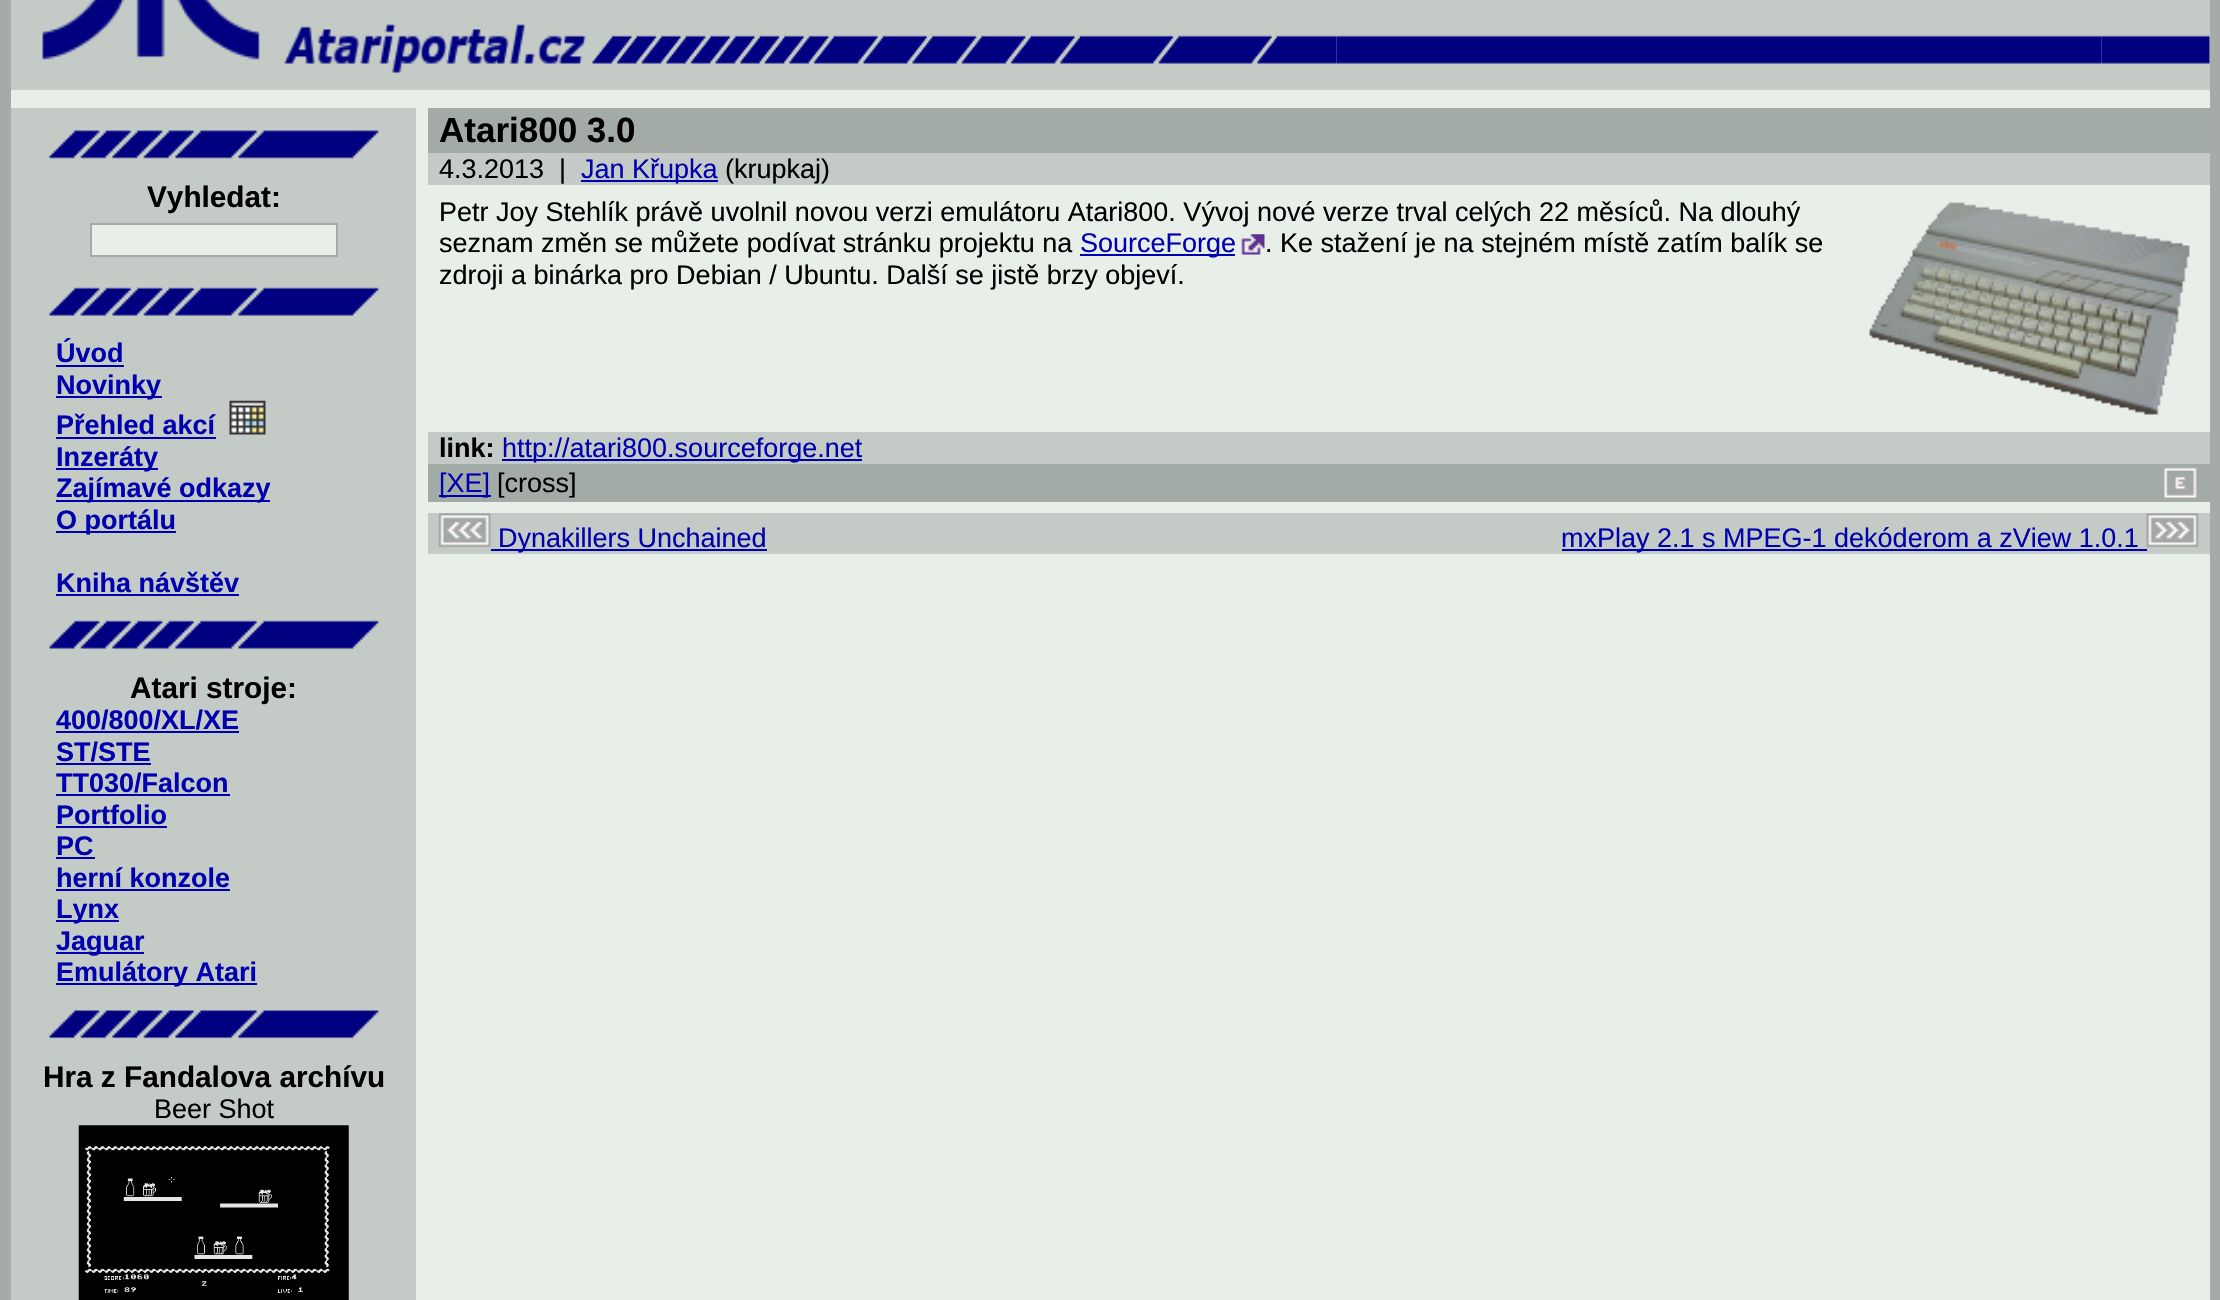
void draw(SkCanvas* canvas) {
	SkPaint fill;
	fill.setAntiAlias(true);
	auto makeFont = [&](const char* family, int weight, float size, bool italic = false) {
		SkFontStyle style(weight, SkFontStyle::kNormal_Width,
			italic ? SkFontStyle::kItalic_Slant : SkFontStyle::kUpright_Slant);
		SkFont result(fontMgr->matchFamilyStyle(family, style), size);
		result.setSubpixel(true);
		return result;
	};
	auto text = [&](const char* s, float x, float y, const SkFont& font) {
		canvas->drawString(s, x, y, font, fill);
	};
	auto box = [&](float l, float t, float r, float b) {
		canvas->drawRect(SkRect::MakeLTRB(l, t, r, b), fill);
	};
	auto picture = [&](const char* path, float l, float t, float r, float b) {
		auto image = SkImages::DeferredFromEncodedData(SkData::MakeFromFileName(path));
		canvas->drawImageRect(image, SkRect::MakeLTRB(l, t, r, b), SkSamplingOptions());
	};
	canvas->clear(0xFFA6ABA7);
	fill.setColor(0xFFC4CAC5);
	box(11, 0, 2210, 90);
	picture("image0.png", 42, 0, 260, 60);
	picture("image1.png", 284, 24, 1337, 73);
	picture("image2.png", 1336, 35, 2102, 64);
	picture("image3.png", 2101, 35, 2210, 64);
	fill.setColor(0xFFE8EFE9);
	box(11, 90, 2210, 108);
	box(416, 108, 2210, 1300);
	fill.setColor(0xFFC4CAC5);
	box(11, 108, 416, 1300);
	picture("image4.png", 49, 130, 379, 159);
	fill.setColor(0xFFE8EFE9);
	canvas->drawRect(SkRect::MakeLTRB(91, 224, 337, 256), fill);
	fill.setStyle(SkPaint::kStroke_Style);
	fill.setStrokeWidth(2);
	fill.setColor(0xFFA6ABA7);
	canvas->drawRect(SkRect::MakeLTRB(91, 224, 337, 256), fill);
	picture("image5.png", 49, 287, 379, 316);
	fill.setStyle(SkPaint::kFill_Style);
	fill.setColor(0xFF0000B0);
	box(56, 365, 124, 367);
	box(56, 396, 162, 398);
	box(56, 437, 216, 439);
	picture("image6.png", 229, 400, 266, 435);
	box(56, 468, 158, 470);
	box(56, 500, 270, 502);
	box(56, 531, 176, 533);
	box(56, 594, 239, 596);
	picture("image5.png", 49, 620, 379, 649);
	box(56, 731, 239, 733);
	box(56, 763, 151, 765);
	box(56, 794, 230, 796);
	box(56, 826, 167, 828);
	box(56, 857, 95, 859);
	box(56, 889, 230, 891);
	box(56, 920, 119, 922);
	box(56, 952, 144, 954);
	box(56, 983, 257, 985);
	picture("image7.png", 49, 1010, 379, 1039);
	picture("image8.png", 78, 1125, 349, 1300);
	fill.setColor(0xFFA3ABA7);
	box(428, 108, 2210, 153);
	fill.setColor(0xFFC4CAC5);
	box(428, 153, 2210, 185);
	fill.setColor(0xFF0000B0);
	box(581, 180, 718, 182);
	picture("image9.png", 1869, 202, 2190, 415);
	box(1080, 254, 1235, 256);
	picture("image10.png", 1241, 234, 1265, 255);
	fill.setColor(0xFFC4CAC5);
	box(428, 432, 2210, 464);
	fill.setColor(0xFF0000B0);
	box(502, 459, 862, 461);
	fill.setColor(0xFFA3ABA7);
	box(428, 464, 2210, 502);
	fill.setColor(0xFF0000B0);
	box(439, 495, 491, 497);
	picture("image11.png", 2164, 467, 2197, 499);
	fill.setColor(0xFFC4CAC5);
	box(428, 513, 2210, 554);
	picture("image12.png", 438, 513, 491, 547);
	fill.setColor(0xFF0000B0);
	box(491, 549, 767, 551);
	box(1562, 549, 2147, 551);
	picture("image13.png", 2146, 513, 2199, 547);
	auto font1 = makeFont("Liberation Sans", 700, 29.75f);
	fill.setColor(0xFF000000);
	text("Vyhledat:", 147, 207, font1);
	auto font2 = makeFont("Liberation Sans", 700, 27);
	fill.setColor(0xFF0000B0);
	text("Úvod", 56, 362, font2);
	text("Novinky", 56, 394, font2);
	text("Přehled akcí", 56, 434, font2);
	text("Inzeráty", 56, 466, font2);
	text("Zajímavé odkazy", 56, 497, font2);
	text("O portálu", 56, 529, font2);
	text("Kniha návštěv", 56, 592, font2);
	fill.setColor(0xFF000000);
	text("Atari stroje:", 130, 698, font1);
	fill.setColor(0xFF0000B0);
	text("400/800/XL/XE", 56, 729, font2);
	text("ST/STE", 56, 761, font2);
	text("TT030/Falcon", 56, 792, font2);
	text("Portfolio", 56, 824, font2);
	text("PC", 56, 855, font2);
	text("herní konzole", 56, 887, font2);
	text("Lynx", 56, 918, font2);
	text("Jaguar", 56, 950, font2);
	text("Emulátory Atari", 56, 981, font2);
	fill.setColor(0xFF000000);
	text("Hra z Fandalova archívu", 43, 1087, font1);
	auto font3 = makeFont("Liberation Sans", 400, 27);
	text("Beer Shot", 154, 1118, font3);
	auto font4 = makeFont("Liberation Sans", 700, 35);
	text("Atari800 3.0", 439, 142, font4);
	text("4.3.2013  |", 439, 178, font3);
	fill.setColor(0xFF0000B0);
	text("Jan Křupka", 581, 178, font3);
	fill.setColor(0xFF000000);
	text("(krupkaj)", 725, 178, font3);
	text("Petr Joy Stehlík právě uvolnil novou verzi emulátoru Atari800. Vývoj nové verze trval celých 22 měsíců. Na dlouhý", 439, 221, font3);
	text("seznam změn se můžete podívat stránku projektu na", 439, 252, font3);
	fill.setColor(0xFF0000B0);
	text("SourceForge", 1080, 252, font3);
	fill.setColor(0xFF000000);
	text(". Ke stažení je na stejném místě zatím balík se", 1265, 252, font3);
	text("zdroji a binárka pro Debian / Ubuntu. Další se jistě brzy objeví.", 439, 284, font3);
	text("link:", 439, 457, font2);
	fill.setColor(0xFF0000B0);
	text("http://atari800.sourceforge.net", 502, 457, font3);
	text("[XE]", 439, 492, font3);
	fill.setColor(0xFF000000);
	text("[cross]", 497, 492, font3);
	fill.setColor(0xFF0000B0);
	text("Dynakillers Unchained", 498, 547, font3);
	text("mxPlay 2.1 s MPEG-1 dekóderom a zView 1.0.1", 1561, 547, font3);
}
